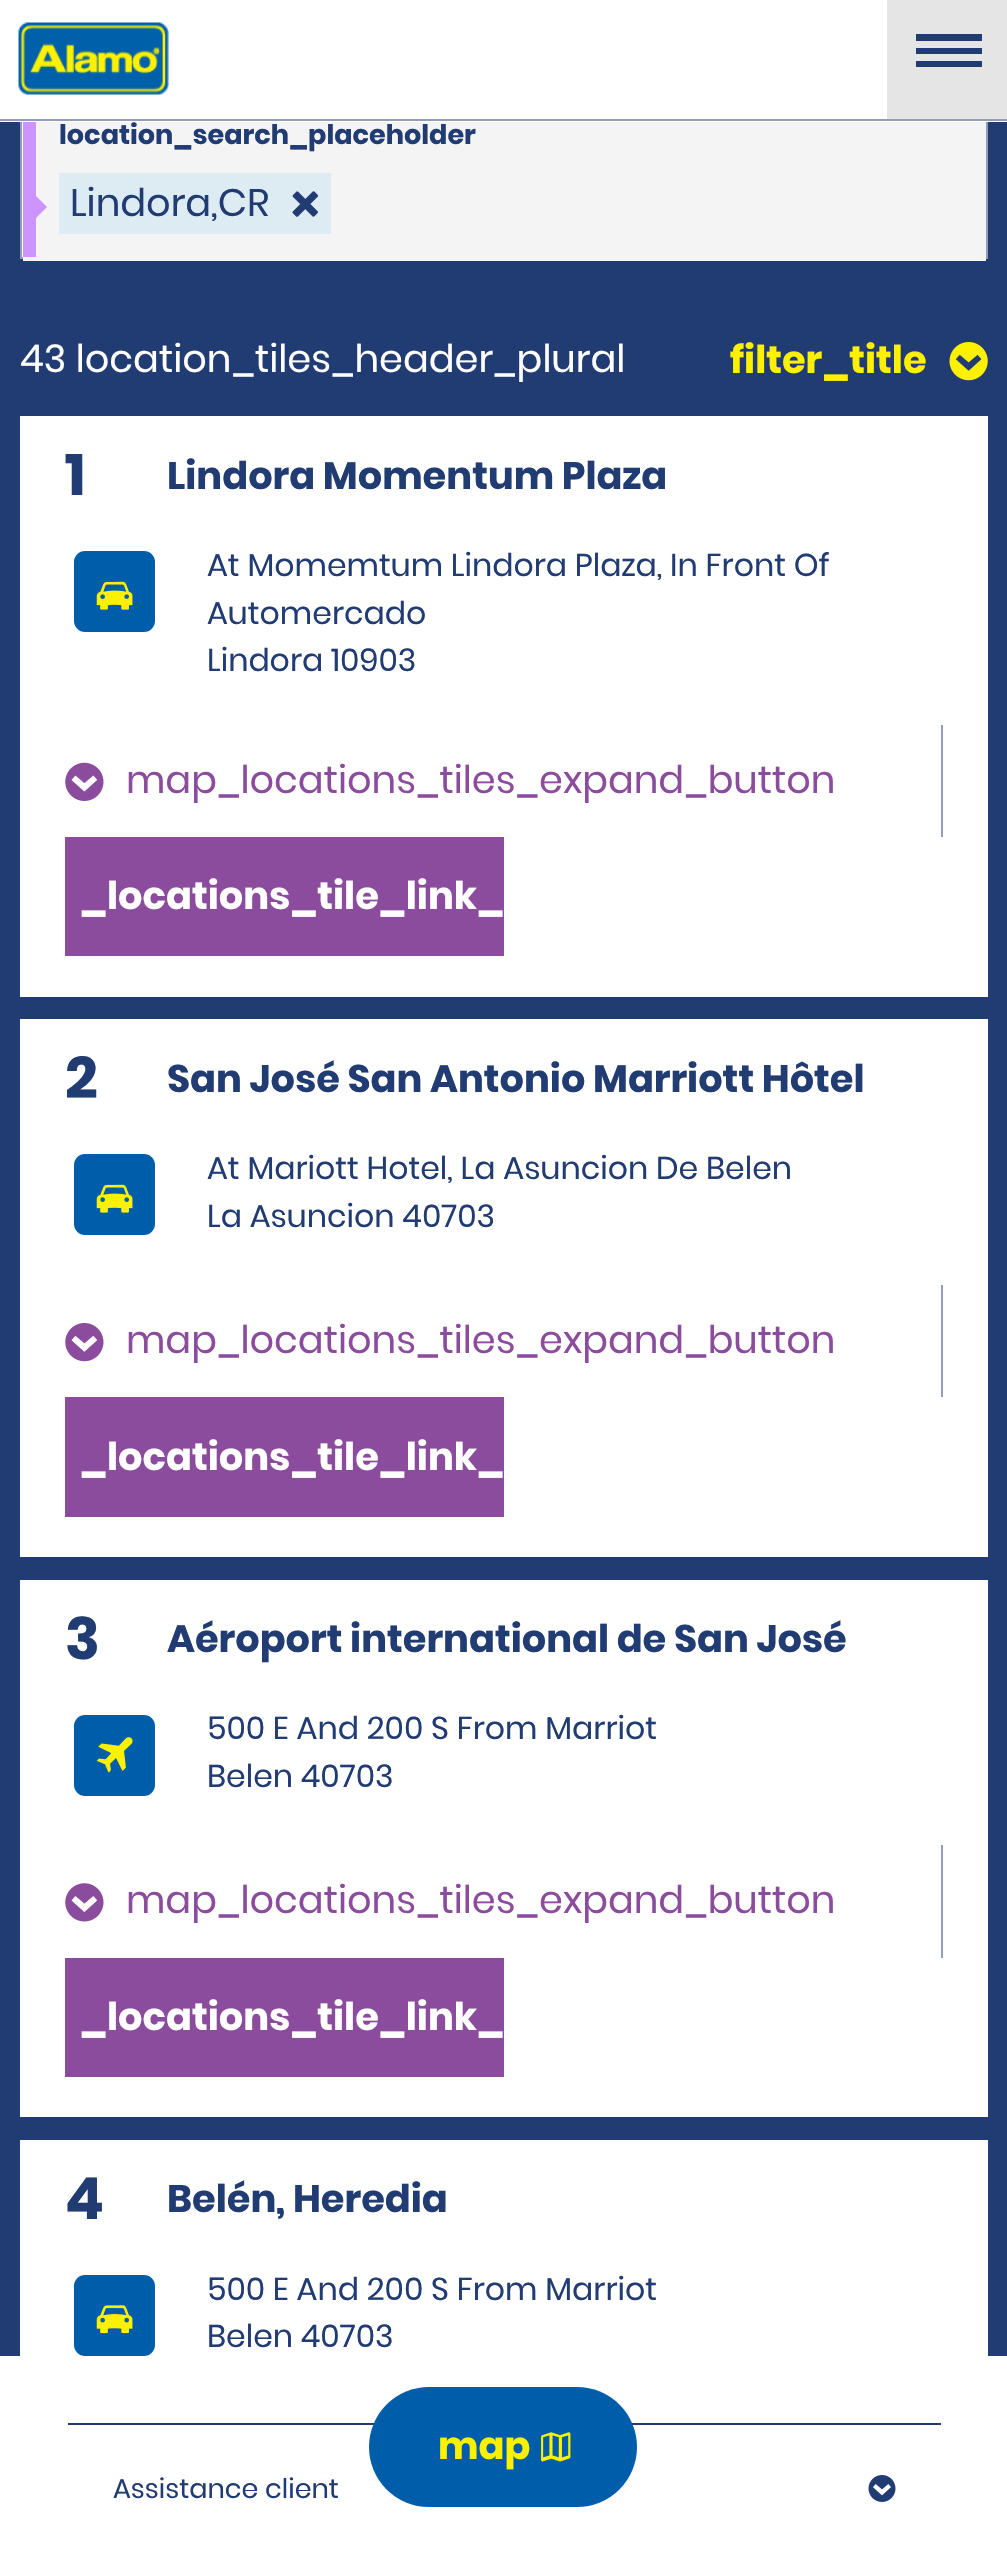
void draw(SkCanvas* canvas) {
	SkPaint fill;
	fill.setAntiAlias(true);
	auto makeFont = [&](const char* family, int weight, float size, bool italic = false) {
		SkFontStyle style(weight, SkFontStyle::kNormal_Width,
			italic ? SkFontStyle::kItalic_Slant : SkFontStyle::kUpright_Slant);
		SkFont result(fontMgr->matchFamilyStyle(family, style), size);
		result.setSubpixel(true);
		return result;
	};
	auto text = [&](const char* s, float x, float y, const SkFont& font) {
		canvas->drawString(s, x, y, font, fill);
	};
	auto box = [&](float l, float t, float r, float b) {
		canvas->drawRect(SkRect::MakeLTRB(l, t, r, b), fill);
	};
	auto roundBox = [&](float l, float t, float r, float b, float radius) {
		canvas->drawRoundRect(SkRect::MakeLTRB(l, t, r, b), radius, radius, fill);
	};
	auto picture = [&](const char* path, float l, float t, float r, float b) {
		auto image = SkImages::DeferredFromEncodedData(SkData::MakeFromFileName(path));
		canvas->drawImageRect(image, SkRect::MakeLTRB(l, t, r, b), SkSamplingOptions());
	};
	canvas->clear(0xFFFFFFFF);
	fill.setColor(0xFF213B73);
	box(0, 122, 1007, 2356);
	fill.setColor(0xFFFFFFFF);
	box(22, 122, 23, 257);
	fill.setStyle(SkPaint::kStroke_Style);
	fill.setStrokeWidth(2);
	fill.setColor(0xFF939DB7);
	canvas->drawRect(SkRect::MakeLTRB(21, 98, 987, 258), fill);
	fill.setStyle(SkPaint::kFill_Style);
	fill.setColor(0xFFFFFFFF);
	box(20, 97, 988, 122);
	fill.setColor(0xFF939DB7);
	box(0, 119, 1007, 121);
	picture("image0.png", 18, 22, 169, 95);
	fill.setColor(0xFFE5E5E5);
	box(887, 0, 1007, 119);
	fill.setColor(0xFF213B73);
	canvas->drawPath(SkPathBuilder().moveTo(916, 61).lineTo(982, 61).lineTo(982, 67).lineTo(916, 67).close().moveTo(916, 34).lineTo(982, 34).lineTo(982, 41).lineTo(916, 41).close().moveTo(916, 48).lineTo(982, 48).lineTo(982, 54).lineTo(916, 54).close().detach(), fill);
	fill.setColor(0xFFF4F4F4);
	box(23, 122, 986, 261);
	fill.setColor(0xFFCD94FF);
	box(23, 122, 36, 257);
	canvas->drawPath(SkPathBuilder().moveTo(36, 218).lineTo(36, 196).lineTo(47, 207).close().detach(), fill);
	fill.setColor(0xFFDDEBF2);
	box(59, 173, 331, 234);
	picture("image1.png", 292, 191, 319, 217);
	picture("image2.png", 949, 342, 988, 381);
	fill.setColor(0xFFFFFFFF);
	box(20, 416, 988, 997);
	fill.setColor(0xFF005DAA);
	roundBox(74, 551, 155, 632, 11);
	picture("image3.png", 96, 581, 133, 610);
	picture("image4.png", 65, 762, 104, 801);
	fill.setColor(0xFF939DB7);
	box(941, 725, 943, 837);
	fill.setColor(0xFF8C4C9E);
	box(65, 837, 504, 956);
	fill.setColor(0xFFFFFFFF);
	box(20, 1019, 988, 1557);
	fill.setColor(0xFF005DAA);
	roundBox(74, 1154, 155, 1235, 11);
	picture("image3.png", 96, 1184, 133, 1213);
	picture("image5.png", 65, 1323, 104, 1362);
	fill.setColor(0xFF939DB7);
	box(941, 1285, 943, 1397);
	fill.setColor(0xFF8C4C9E);
	box(65, 1397, 504, 1517);
	fill.setColor(0xFFFFFFFF);
	box(20, 1580, 988, 2117);
	fill.setColor(0xFF005DAA);
	roundBox(74, 1715, 155, 1796, 11);
	picture("image6.png", 96, 1737, 133, 1773);
	picture("image7.png", 65, 1883, 104, 1922);
	fill.setColor(0xFF939DB7);
	box(941, 1845, 943, 1958);
	fill.setColor(0xFF8C4C9E);
	box(65, 1958, 504, 2077);
	fill.setColor(0xFFFFFFFF);
	box(20, 2140, 988, 2356);
	fill.setColor(0xFF005DAA);
	roundBox(74, 2275, 155, 2356, 11);
	picture("image8.png", 96, 2305, 133, 2334);
	fill.setColor(0xFF213B73);
	box(68, 2423, 941, 2425);
	fill.setColor(0xFF005DAA);
	roundBox(369, 2387, 637, 2507, 60);
	picture("image9.png", 541, 2432, 571, 2462);
	picture("image10.png", 868, 2475, 896, 2502);
	auto font1 = makeFont("Poppins", 700, 27);
	fill.setColor(0xFF213B73);
	text("location_search_placeholder", 59, 144, font1);
	auto font2 = makeFont("Poppins", 400, 38.25f);
	text("Lindora,CR", 70, 216, font2);
	fill.setColor(0xFFFFFFFF);
	text("43 location_tiles_header_plural", 20, 372, font2);
	auto font3 = makeFont("Poppins", 700, 38.25f);
	fill.setColor(0xFFFEF100);
	text("filter_title", 730, 373, font3);
	auto font4 = makeFont("Poppins", 700, 58);
	fill.setColor(0xFF213B73);
	text("1", 65, 495, font4);
	text("Lindora Momentum Plaza", 167, 489, font3);
	auto font5 = makeFont("Poppins", 400, 31.5f);
	text("At Momemtum Lindora Plaza, In Front Of", 207, 576, font5);
	text("Automercado", 207, 624, font5);
	text("Lindora 10903", 207, 671, font5);
	fill.setColor(0xFF8C4C9E);
	text("map_locations_tiles_expand_button", 126, 793, font2);
	fill.setColor(0xFFFFFFFF);
	text("_locations_tile_link_", 80, 909, font3);
	fill.setColor(0xFF213B73);
	text("2", 65, 1098, font4);
	text("San José San Antonio Marriott Hôtel", 167, 1092, font3);
	text("At Mariott Hotel, La Asuncion De Belen", 207, 1179, font5);
	text("La Asuncion 40703", 207, 1227, font5);
	fill.setColor(0xFF8C4C9E);
	text("map_locations_tiles_expand_button", 126, 1353, font2);
	fill.setColor(0xFFFFFFFF);
	text("_locations_tile_link_", 80, 1470, font3);
	fill.setColor(0xFF213B73);
	text("3", 65, 1659, font4);
	text("Aéroport international de San José", 167, 1652, font3);
	text("500 E And 200 S From Marriot", 207, 1739, font5);
	text("Belen 40703", 207, 1787, font5);
	fill.setColor(0xFF8C4C9E);
	text("map_locations_tiles_expand_button", 126, 1913, font2);
	fill.setColor(0xFFFFFFFF);
	text("_locations_tile_link_", 80, 2030, font3);
	fill.setColor(0xFF213B73);
	text("4", 65, 2219, font4);
	text("Belén, Heredia", 167, 2212, font3);
	text("500 E And 200 S From Marriot", 207, 2300, font5);
	text("Belen 40703", 207, 2347, font5);
	fill.setColor(0xFFFEF100);
	text("map", 438, 2459, font3);
	auto font6 = makeFont("Poppins", 400, 27);
	fill.setColor(0xFF213B73);
	text("Assistance client", 113, 2498, font6);
}
